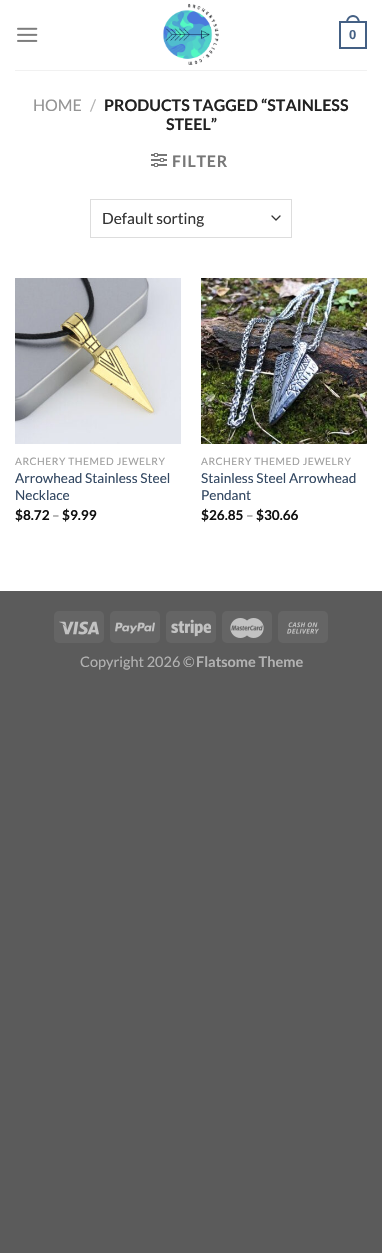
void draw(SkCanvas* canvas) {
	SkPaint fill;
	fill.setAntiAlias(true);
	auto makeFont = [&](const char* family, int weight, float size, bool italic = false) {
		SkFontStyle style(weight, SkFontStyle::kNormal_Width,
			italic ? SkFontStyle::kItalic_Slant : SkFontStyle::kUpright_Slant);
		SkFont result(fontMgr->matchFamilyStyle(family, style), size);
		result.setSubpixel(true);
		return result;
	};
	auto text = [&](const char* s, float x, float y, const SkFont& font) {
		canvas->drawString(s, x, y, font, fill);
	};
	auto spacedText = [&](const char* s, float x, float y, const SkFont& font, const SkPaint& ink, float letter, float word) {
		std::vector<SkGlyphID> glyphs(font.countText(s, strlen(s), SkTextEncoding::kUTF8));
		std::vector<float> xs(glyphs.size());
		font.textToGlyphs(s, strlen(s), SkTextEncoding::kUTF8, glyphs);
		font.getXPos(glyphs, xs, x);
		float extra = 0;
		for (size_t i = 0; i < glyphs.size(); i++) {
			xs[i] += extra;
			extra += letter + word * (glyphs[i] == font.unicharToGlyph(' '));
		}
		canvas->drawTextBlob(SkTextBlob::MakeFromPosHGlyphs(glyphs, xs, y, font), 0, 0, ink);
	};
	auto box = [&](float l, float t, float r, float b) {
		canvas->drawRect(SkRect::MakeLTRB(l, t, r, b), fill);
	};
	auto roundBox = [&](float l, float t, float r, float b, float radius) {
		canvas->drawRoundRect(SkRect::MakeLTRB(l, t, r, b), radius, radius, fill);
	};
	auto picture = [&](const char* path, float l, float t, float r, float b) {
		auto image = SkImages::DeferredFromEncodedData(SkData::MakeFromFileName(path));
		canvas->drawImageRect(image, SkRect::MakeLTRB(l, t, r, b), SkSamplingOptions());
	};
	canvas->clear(0xFF5B5B5B);
	fill.setColor(0xFFFFFFFF);
	box(0, 0, 382, 591);
	picture("image0.png", 17, 27, 38, 42);
	picture("image1.png", 163, 3, 219, 65);
	fill.setStyle(SkPaint::kStroke_Style);
	fill.setStrokeWidth(2);
	fill.setColor(0xFF446084);
	canvas->drawRect(SkRect::MakeLTRB(340, 22, 366, 48), fill);
	fill.setStyle(SkPaint::kFill_Style);
	canvas->drawPath(SkPathBuilder(SkPathFillType::kEvenOdd).moveTo(353, 15).cubicTo(357.5f, 15, 360, 19, 360, 23).lineTo(346, 23).cubicTo(346, 19, 348.5f, 15, 353, 15).close().moveTo(353, 17).cubicTo(356.5f, 17, 358, 20, 358, 23).lineTo(348, 23).cubicTo(348, 20, 349.5f, 17, 353, 17).close().detach(), fill);
	fill.setColor(0xFFF1F1F1);
	box(15, 70, 367, 71);
	picture("image2.png", 151, 153, 167, 167);
	fill.setStyle(SkPaint::kStroke_Style);
	fill.setStrokeWidth(1.3f);
	fill.setStrokeCap(SkPaint::kRound_Cap);
	fill.setStrokeJoin(SkPaint::kRound_Join);
	fill.setColor(0xFF333333);
	canvas->drawPath(SkPathBuilder().moveTo(272, 216).lineTo(276, 220).lineTo(280, 216).detach(), fill);
	fill.setStrokeWidth(1);
	fill.setStrokeCap(SkPaint::kButt_Cap);
	fill.setStrokeJoin(SkPaint::kMiter_Join);
	fill.setColor(0xFFDDDDDD);
	canvas->drawRect(SkRect::MakeLTRB(90.5f, 199.5f, 291.5f, 237.5f), fill);
	picture("image3.png", 15, 278, 181, 444);
	picture("image4.png", 201, 278, 367, 444);
	fill.setStyle(SkPaint::kFill_Style);
	fill.setColor(0xFF656565);
	roundBox(54, 611, 104, 643, 5);
	picture("image5.png", 59, 621, 99, 635);
	roundBox(110, 611, 160, 643, 5);
	picture("image6.png", 115, 622, 155, 634);
	roundBox(166, 611, 216, 643, 5);
	picture("image7.png", 171, 619, 211, 637);
	roundBox(222, 611, 272, 643, 5);
	picture("image8.png", 230, 618, 264, 638);
	roundBox(278, 611, 328, 643, 5);
	picture("image9.png", 287, 622, 319, 634);
	auto font1 = makeFont("Liberation Sans", 700, 13);
	fill.setColor(0xFF446084);
	text("0", 349, 39, font1);
	auto font2 = makeFont("Lato", 400, 16);
	fill.setColor(0xFF949494);
	text("HOME", 33, 111, font2);
	fill.setColor(0xFFB2B2B2);
	text("/", 90, 111, font2);
	auto font3 = makeFont("Lato", 700, 16);
	fill.setColor(0xFF222222);
	text("PRODUCTS TAGGED “STAINLESS", 104, 111, font3);
	text("STEEL”", 166, 130, font3);
	fill.setColor(0xFF777777);
	spacedText("FILTER", 172, 167, font3, fill, 0.75f, 0);
	auto font4 = makeFont("Lato", 400, 15.5f);
	fill.setColor(0xFF333333);
	text("Default sorting", 102, 224, font4);
	auto font5 = makeFont("Lato", 400, 10.25f);
	fill.setColor(0xFFA0A0A0);
	spacedText("ARCHERY THEMED JEWELRY", 15, 465, font5, fill, 0.5f, 0);
	auto font6 = makeFont("Lato", 400, 13.6f);
	fill.setColor(0xFF334862);
	text("Arrowhead Stainless Steel", 15, 483, font6);
	text("Necklace", 15, 500, font6);
	auto font7 = makeFont("Lato", 700, 13.6f);
	fill.setColor(0xFF111111);
	text("$8.72", 15, 520, font7);
	fill.setColor(0xFF777777);
	text("–", 52, 520, font6);
	fill.setColor(0xFF111111);
	text("$9.99", 62, 520, font7);
	fill.setColor(0xFFA0A0A0);
	spacedText("ARCHERY THEMED JEWELRY", 201, 465, font5, fill, 0.5f, 0);
	fill.setColor(0xFF334862);
	text("Stainless Steel Arrowhead", 201, 483, font6);
	text("Pendant", 201, 500, font6);
	fill.setColor(0xFF111111);
	text("$26.85", 201, 520, font7);
	fill.setColor(0xFF777777);
	text("–", 246, 520, font6);
	fill.setColor(0xFF111111);
	text("$30.66", 256, 520, font7);
	auto font8 = makeFont("Lato", 400, 14.5f);
	fill.setColor(0xFFB2B2B2);
	text("Copyright 2026 ©", 80, 667, font8);
	auto font9 = makeFont("Lato", 700, 14.5f);
	text("Flatsome Theme", 196, 667, font9);
}
